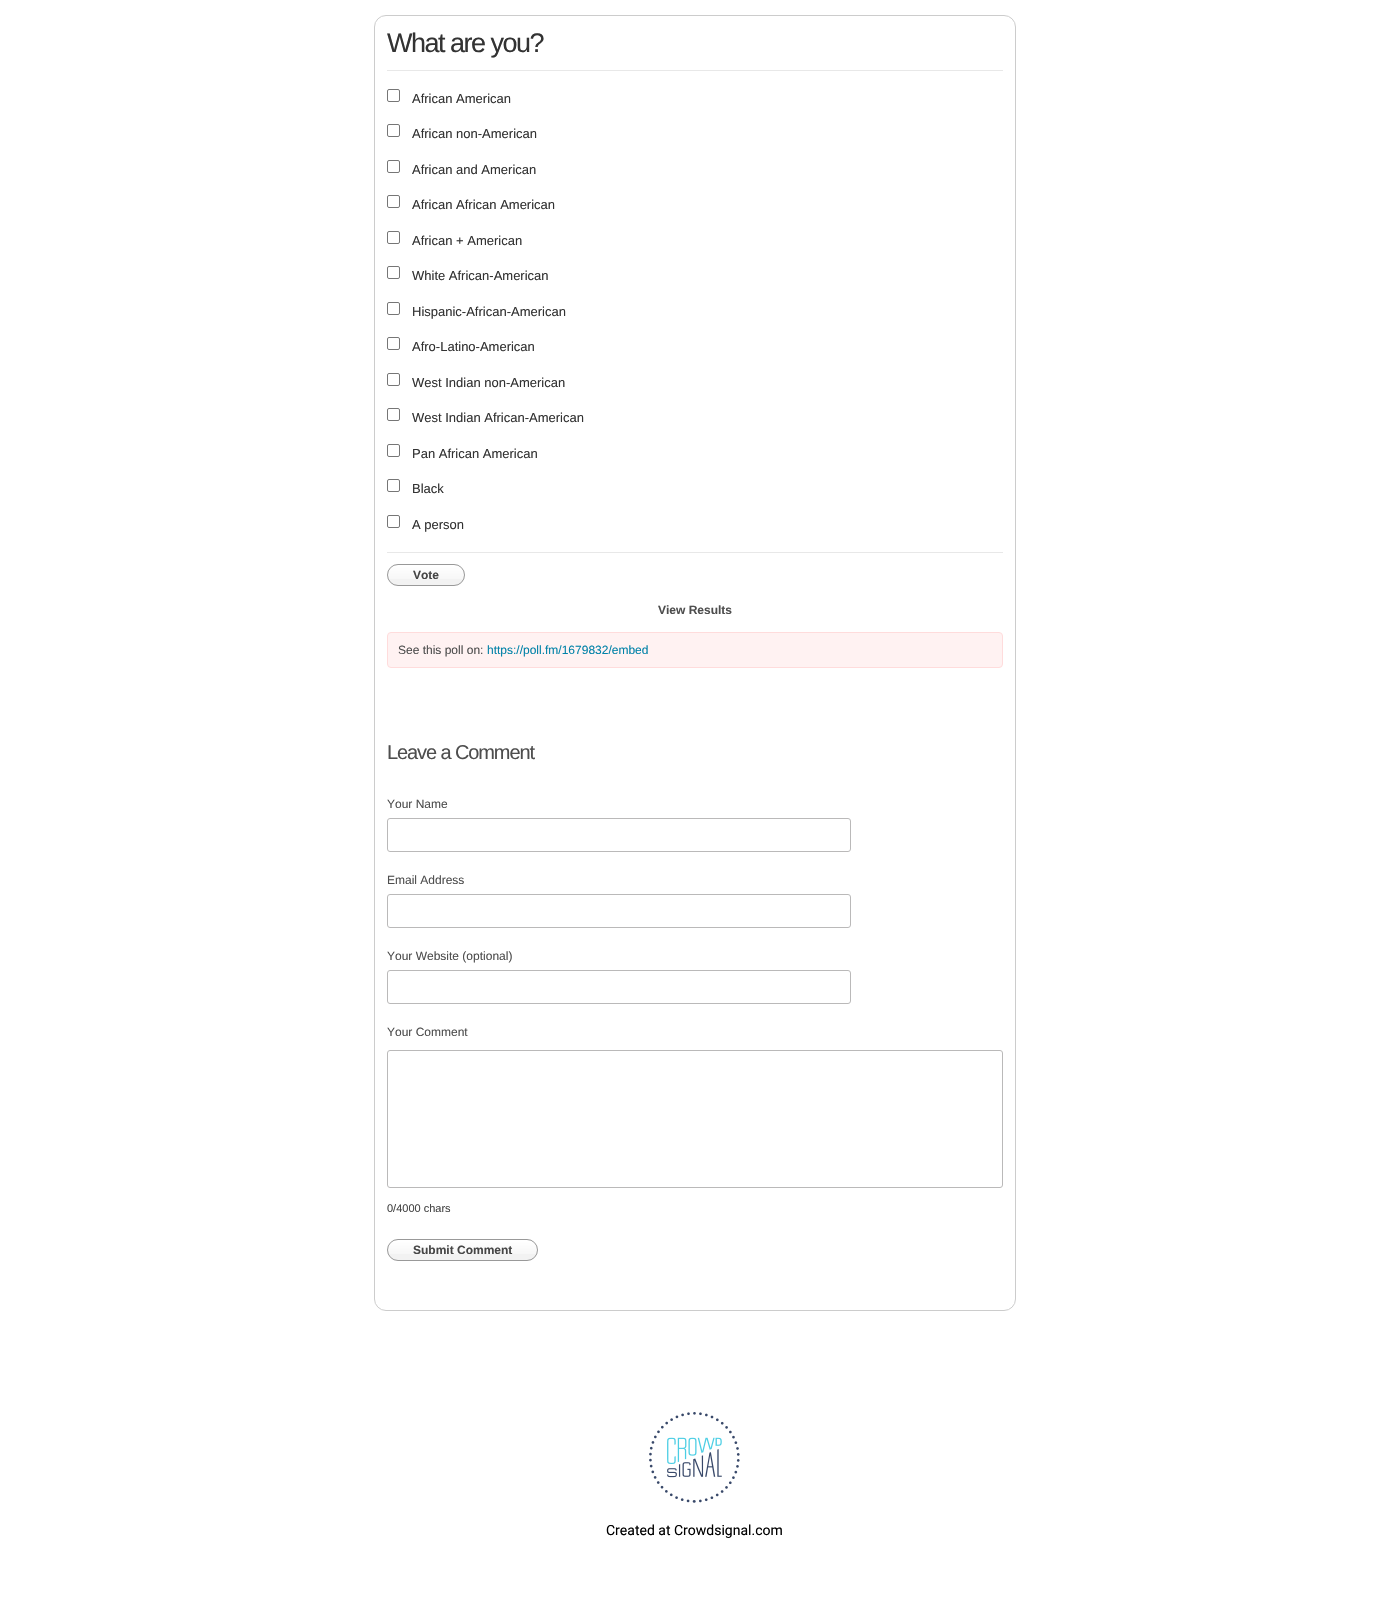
void draw(SkCanvas* canvas) {
	SkPaint fill;
	fill.setAntiAlias(true);
	auto makeFont = [&](const char* family, int weight, float size, bool italic = false) {
		SkFontStyle style(weight, SkFontStyle::kNormal_Width,
			italic ? SkFontStyle::kItalic_Slant : SkFontStyle::kUpright_Slant);
		SkFont result(fontMgr->matchFamilyStyle(family, style), size);
		result.setSubpixel(true);
		return result;
	};
	auto text = [&](const char* s, float x, float y, const SkFont& font) {
		canvas->drawString(s, x, y, font, fill);
	};
	auto spacedText = [&](const char* s, float x, float y, const SkFont& font, const SkPaint& ink, float letter, float word) {
		std::vector<SkGlyphID> glyphs(font.countText(s, strlen(s), SkTextEncoding::kUTF8));
		std::vector<float> xs(glyphs.size());
		font.textToGlyphs(s, strlen(s), SkTextEncoding::kUTF8, glyphs);
		font.getXPos(glyphs, xs, x);
		float extra = 0;
		for (size_t i = 0; i < glyphs.size(); i++) {
			xs[i] += extra;
			extra += letter + word * (glyphs[i] == font.unicharToGlyph(' '));
		}
		canvas->drawTextBlob(SkTextBlob::MakeFromPosHGlyphs(glyphs, xs, y, font), 0, 0, ink);
	};
	auto box = [&](float l, float t, float r, float b) {
		canvas->drawRect(SkRect::MakeLTRB(l, t, r, b), fill);
	};
	auto roundBox = [&](float l, float t, float r, float b, float radius) {
		canvas->drawRoundRect(SkRect::MakeLTRB(l, t, r, b), radius, radius, fill);
	};
	auto picture = [&](const char* path, float l, float t, float r, float b) {
		auto image = SkImages::DeferredFromEncodedData(SkData::MakeFromFileName(path));
		canvas->drawImageRect(image, SkRect::MakeLTRB(l, t, r, b), SkSamplingOptions());
	};
	canvas->clear(0xFFFFFFFF);
	fill.setStyle(SkPaint::kStroke_Style);
	fill.setStrokeWidth(1);
	fill.setColor(0xFFCCCCCC);
	canvas->drawRoundRect(SkRect::MakeLTRB(374.5f, 15.5f, 1015.5f, 1310.5f), 11.5f, 11.5f, fill);
	fill.setStyle(SkPaint::kFill_Style);
	fill.setColor(0xFFE8E8E8);
	box(387, 70, 1003, 71);
	box(387, 552, 1003, 553);
	fill.setStyle(SkPaint::kStroke_Style);
	fill.setColor(0xFF767676);
	canvas->drawRoundRect(SkRect::MakeLTRB(387.5f, 89.5f, 399.5f, 101.5f), 1.5f, 1.5f, fill);
	canvas->drawRoundRect(SkRect::MakeLTRB(387.5f, 124.5f, 399.5f, 136.5f), 1.5f, 1.5f, fill);
	canvas->drawRoundRect(SkRect::MakeLTRB(387.5f, 160.5f, 399.5f, 172.5f), 1.5f, 1.5f, fill);
	canvas->drawRoundRect(SkRect::MakeLTRB(387.5f, 195.5f, 399.5f, 207.5f), 1.5f, 1.5f, fill);
	canvas->drawRoundRect(SkRect::MakeLTRB(387.5f, 231.5f, 399.5f, 243.5f), 1.5f, 1.5f, fill);
	canvas->drawRoundRect(SkRect::MakeLTRB(387.5f, 266.5f, 399.5f, 278.5f), 1.5f, 1.5f, fill);
	canvas->drawRoundRect(SkRect::MakeLTRB(387.5f, 302.5f, 399.5f, 314.5f), 1.5f, 1.5f, fill);
	canvas->drawRoundRect(SkRect::MakeLTRB(387.5f, 337.5f, 399.5f, 349.5f), 1.5f, 1.5f, fill);
	canvas->drawRoundRect(SkRect::MakeLTRB(387.5f, 373.5f, 399.5f, 385.5f), 1.5f, 1.5f, fill);
	canvas->drawRoundRect(SkRect::MakeLTRB(387.5f, 408.5f, 399.5f, 420.5f), 1.5f, 1.5f, fill);
	canvas->drawRoundRect(SkRect::MakeLTRB(387.5f, 444.5f, 399.5f, 456.5f), 1.5f, 1.5f, fill);
	canvas->drawRoundRect(SkRect::MakeLTRB(387.5f, 479.5f, 399.5f, 491.5f), 1.5f, 1.5f, fill);
	canvas->drawRoundRect(SkRect::MakeLTRB(387.5f, 515.5f, 399.5f, 527.5f), 1.5f, 1.5f, fill);
	fill.setStyle(SkPaint::kFill_Style);
	fill.setColor(0xFFF2F2F2);
	roundBox(387, 564, 465, 586, 11);
	picture("image0.png", 387, 565, 465, 579);
	fill.setStyle(SkPaint::kStroke_Style);
	fill.setColor(0xFF999999);
	canvas->drawRoundRect(SkRect::MakeLTRB(387.5f, 564.5f, 464.5f, 585.5f), 10.5f, 10.5f, fill);
	fill.setStyle(SkPaint::kFill_Style);
	fill.setColor(0xFFFFF2F2);
	canvas->drawRoundRect(SkRect::MakeLTRB(387.5f, 632.5f, 1002.5f, 667.5f), 3.5f, 3.5f, fill);
	fill.setStyle(SkPaint::kStroke_Style);
	fill.setColor(0xFFFFDCDC);
	canvas->drawRoundRect(SkRect::MakeLTRB(387.5f, 632.5f, 1002.5f, 667.5f), 3.5f, 3.5f, fill);
	fill.setColor(0xFFBAB9B9);
	canvas->drawRoundRect(SkRect::MakeLTRB(387.5f, 818.5f, 850.5f, 851.5f), 2.5f, 2.5f, fill);
	canvas->drawRoundRect(SkRect::MakeLTRB(387.5f, 894.5f, 850.5f, 927.5f), 2.5f, 2.5f, fill);
	canvas->drawRoundRect(SkRect::MakeLTRB(387.5f, 970.5f, 850.5f, 1003.5f), 2.5f, 2.5f, fill);
	canvas->drawRoundRect(SkRect::MakeLTRB(387.5f, 1050.5f, 1002.5f, 1187.5f), 2.5f, 2.5f, fill);
	fill.setStyle(SkPaint::kFill_Style);
	fill.setColor(0xFFF2F2F2);
	roundBox(387, 1239, 538, 1261, 11);
	picture("image1.png", 387, 1240, 538, 1254);
	fill.setStyle(SkPaint::kStroke_Style);
	fill.setColor(0xFF999999);
	canvas->drawRoundRect(SkRect::MakeLTRB(387.5f, 1239.5f, 537.5f, 1260.5f), 10.5f, 10.5f, fill);
	picture("image2.png", 649, 1412, 740, 1503);
	auto font1 = makeFont("Liberation Sans", 400, 27);
	fill.setStyle(SkPaint::kFill_Style);
	fill.setColor(0xFF333333);
	spacedText("What are you?", 387, 52, font1, fill, -1.5f, 0);
	auto font2 = makeFont("Liberation Sans", 400, 13);
	text("African American", 412, 103, font2);
	text("African non-American", 412, 138, font2);
	text("African and American", 412, 174, font2);
	text("African African American", 412, 209, font2);
	text("African + American", 412, 245, font2);
	text("White African-American", 412, 280, font2);
	text("Hispanic-African-American", 412, 316, font2);
	text("Afro-Latino-American", 412, 351, font2);
	text("West Indian non-American", 412, 387, font2);
	text("West Indian African-American", 412, 422, font2);
	text("Pan African American", 412, 458, font2);
	text("Black", 412, 493, font2);
	text("A person", 412, 529, font2);
	auto font3 = makeFont("Liberation Sans", 700, 12);
	fill.setColor(0xFF464646);
	text("Vote", 413, 579, font3);
	fill.setColor(0xFF4E4E4E);
	text("View Results", 658, 614, font3);
	auto font4 = makeFont("Liberation Sans", 400, 12);
	text("See this poll on:", 398, 654, font4);
	fill.setColor(0xFF0182A8);
	text("https://poll.fm/1679832/embed", 487, 654, font4);
	auto font5 = makeFont("Liberation Sans", 400, 20);
	fill.setColor(0xFF4E4E4E);
	spacedText("Leave a Comment", 387, 759, font5, fill, -1.1f, 0);
	text("Your Name", 387, 808, font4);
	text("Email Address", 387, 884, font4);
	text("Your Website (optional)", 387, 960, font4);
	text("Your Comment", 387, 1036, font4);
	auto font6 = makeFont("Liberation Sans", 400, 11);
	fill.setColor(0xFF464646);
	text("0/4000 chars", 387, 1212, font6);
	text("Submit Comment", 413, 1254, font3);
	auto font7 = makeFont("Roboto", 400, 14);
	fill.setColor(0xFF000000);
	text("Created at Crowdsignal.com", 606, 1535, font7);
}
